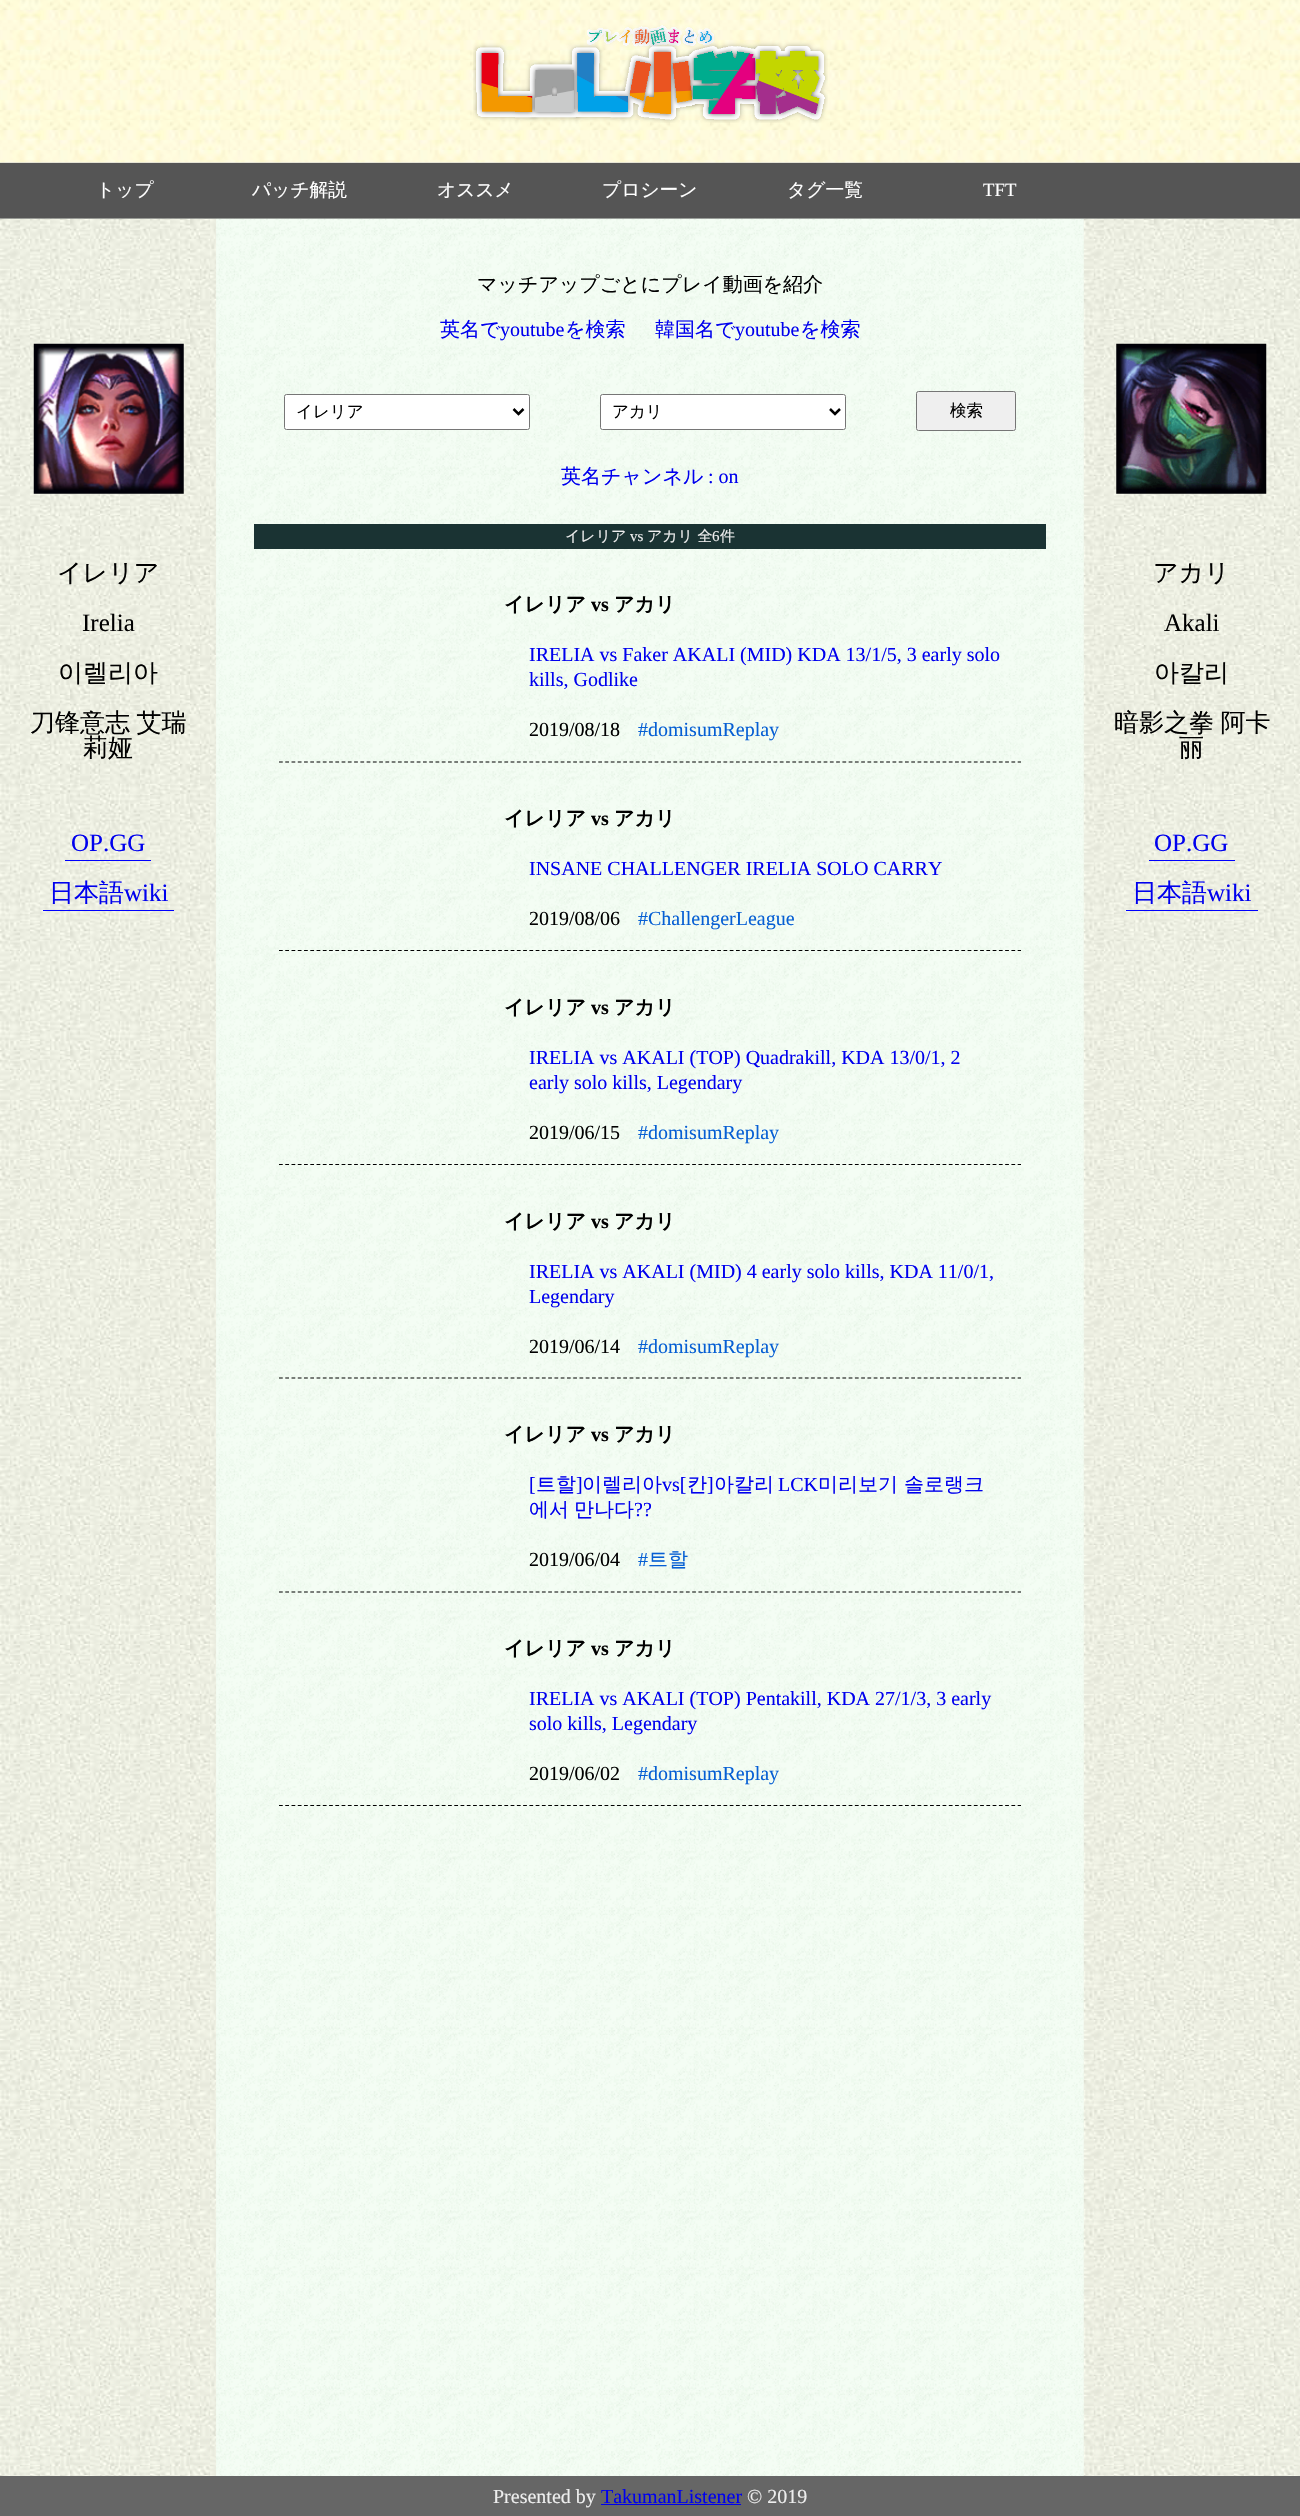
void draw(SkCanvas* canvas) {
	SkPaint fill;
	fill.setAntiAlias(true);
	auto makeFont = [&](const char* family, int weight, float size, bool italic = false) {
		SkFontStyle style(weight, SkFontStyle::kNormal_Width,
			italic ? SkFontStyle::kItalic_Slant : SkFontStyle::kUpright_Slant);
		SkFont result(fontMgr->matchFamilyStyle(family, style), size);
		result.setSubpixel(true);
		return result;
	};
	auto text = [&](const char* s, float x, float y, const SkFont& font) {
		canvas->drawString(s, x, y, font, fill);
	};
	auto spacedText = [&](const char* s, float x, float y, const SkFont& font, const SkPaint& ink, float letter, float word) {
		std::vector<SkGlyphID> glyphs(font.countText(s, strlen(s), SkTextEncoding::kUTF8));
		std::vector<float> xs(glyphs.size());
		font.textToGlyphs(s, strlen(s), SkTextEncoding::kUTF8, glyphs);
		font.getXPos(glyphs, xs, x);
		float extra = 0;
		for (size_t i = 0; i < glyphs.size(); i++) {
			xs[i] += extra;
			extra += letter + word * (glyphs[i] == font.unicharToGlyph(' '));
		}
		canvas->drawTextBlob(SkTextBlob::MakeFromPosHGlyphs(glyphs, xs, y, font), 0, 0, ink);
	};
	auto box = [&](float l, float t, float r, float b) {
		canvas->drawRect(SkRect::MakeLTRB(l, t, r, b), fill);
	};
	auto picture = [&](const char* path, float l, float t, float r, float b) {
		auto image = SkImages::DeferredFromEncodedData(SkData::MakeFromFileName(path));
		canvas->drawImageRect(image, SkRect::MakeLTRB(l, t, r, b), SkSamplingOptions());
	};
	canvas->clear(0xFFCCCCCC);
	picture("image0.png", 0, 0, 1300, 163);
	picture("image1.png", 473, 25, 828, 123);
	fill.setColor(0xFF555555);
	box(0, 163, 1300, 219);
	picture("image2.png", 0, 218, 1300, 2476);
	picture("image3.png", 0, 218, 217, 2476);
	picture("image4.png", 33, 343, 184, 494);
	fill.setColor(0xFF0000FF);
	box(65, 860, 151, 861);
	box(43, 910, 174, 911);
	picture("image5.png", 216, 218, 1084, 2476);
	fill.setColor(0xFFFFFFFF);
	canvas->drawRoundRect(SkRect::MakeLTRB(284.5f, 394.5f, 529.5f, 429.5f), 2, 2, fill);
	fill.setStyle(SkPaint::kStroke_Style);
	fill.setStrokeWidth(1);
	fill.setColor(0xFF767676);
	canvas->drawRoundRect(SkRect::MakeLTRB(284.5f, 394.5f, 529.5f, 429.5f), 2, 2, fill);
	fill.setStrokeWidth(2.5f);
	fill.setColor(0xFF000000);
	canvas->drawPath(SkPathBuilder().moveTo(513.5f, 409).lineTo(518.5f, 414).lineTo(523.5f, 409).detach(), fill);
	fill.setStyle(SkPaint::kFill_Style);
	fill.setColor(0xFFFFFFFF);
	canvas->drawRoundRect(SkRect::MakeLTRB(600.5f, 394.5f, 845.5f, 429.5f), 2, 2, fill);
	fill.setStyle(SkPaint::kStroke_Style);
	fill.setStrokeWidth(1);
	fill.setColor(0xFF767676);
	canvas->drawRoundRect(SkRect::MakeLTRB(600.5f, 394.5f, 845.5f, 429.5f), 2, 2, fill);
	fill.setStrokeWidth(2.5f);
	fill.setColor(0xFF000000);
	canvas->drawPath(SkPathBuilder().moveTo(830, 409).lineTo(835, 414).lineTo(840, 409).detach(), fill);
	fill.setStyle(SkPaint::kFill_Style);
	fill.setColor(0xFFEFEFEF);
	canvas->drawRoundRect(SkRect::MakeLTRB(916.5f, 391.5f, 1015.5f, 430.5f), 2, 2, fill);
	fill.setStyle(SkPaint::kStroke_Style);
	fill.setStrokeWidth(1);
	fill.setColor(0xFF767676);
	canvas->drawRoundRect(SkRect::MakeLTRB(916.5f, 391.5f, 1015.5f, 430.5f), 2, 2, fill);
	fill.setStyle(SkPaint::kFill_Style);
	fill.setColor(0xFF1A3333);
	box(254, 524, 1046, 549);
	fill.setStyle(SkPaint::kStroke_Style);
	fill.setStrokeWidth(1.2f);
	fill.setColor(0xFF000000);
	fill.setPathEffect(SkDashPathEffect::Make({{3.75f, 2.51f}}, 0));
	canvas->drawPath(SkPathBuilder().moveTo(279, 762).lineTo(1021, 762).detach(), fill);
	fill.setPathEffect(nullptr);
	fill.setPathEffect(SkDashPathEffect::Make({{3.75f, 2.51f}}, 0));
	canvas->drawPath(SkPathBuilder().moveTo(279, 950.5f).lineTo(1021, 950.5f).detach(), fill);
	fill.setPathEffect(nullptr);
	fill.setPathEffect(SkDashPathEffect::Make({{3.75f, 2.51f}}, 0));
	canvas->drawPath(SkPathBuilder().moveTo(279, 1164.5f).lineTo(1021, 1164.5f).detach(), fill);
	fill.setPathEffect(nullptr);
	fill.setPathEffect(SkDashPathEffect::Make({{3.75f, 2.51f}}, 0));
	canvas->drawPath(SkPathBuilder().moveTo(279, 1378).lineTo(1021, 1378).detach(), fill);
	fill.setPathEffect(nullptr);
	fill.setPathEffect(SkDashPathEffect::Make({{3.75f, 2.51f}}, 0));
	canvas->drawPath(SkPathBuilder().moveTo(279, 1592).lineTo(1021, 1592).detach(), fill);
	fill.setPathEffect(nullptr);
	fill.setPathEffect(SkDashPathEffect::Make({{3.75f, 2.51f}}, 0));
	canvas->drawPath(SkPathBuilder().moveTo(279, 1805.5f).lineTo(1021, 1805.5f).detach(), fill);
	fill.setPathEffect(nullptr);
	picture("image6.png", 1083, 218, 1300, 2476);
	picture("image7.png", 1116, 343, 1267, 494);
	fill.setStyle(SkPaint::kFill_Style);
	fill.setColor(0xFF0000FF);
	box(1149, 860, 1235, 861);
	box(1126, 910, 1258, 911);
	fill.setColor(0xFF666666);
	box(0, 2476, 1300, 2516);
	fill.setColor(0xFF0000EE);
	box(601, 2504, 741, 2505);
	auto font1 = makeFont("WenQuanYi Zen Hei", 500, 18.75f);
	fill.setColor(0xFFFFFFFF);
	text("トップ", 96, 196, font1);
	text("パッチ解説", 252, 196, font1);
	text("オススメ", 437, 196, font1);
	text("プロシーン", 602, 196, font1);
	text("タグ一覧", 787, 196, font1);
	auto font2 = makeFont("Liberation Serif", 400, 18.75f);
	text("TFT", 983, 196, font2);
	auto font3 = makeFont("WenQuanYi Zen Hei", 500, 25);
	fill.setColor(0xFF000000);
	text("イレリア", 57, 581, font3);
	auto font4 = makeFont("Liberation Serif", 400, 25);
	text("Irelia", 82, 631, font4);
	text("이렐리아", 58, 681, font3);
	spacedText("刀锋意志 艾瑞", 30, 731, font3, fill, 0, -1);
	text("莉娅", 83, 756, font3);
	fill.setColor(0xFF0000EE);
	text("OP.GG", 71, 851, font4);
	text("日本語", 49, 901, font3);
	text("wiki", 124, 901, font4);
	auto font5 = makeFont("WenQuanYi Zen Hei", 500, 20);
	fill.setColor(0xFF000000);
	text("マッチアップごとにプレイ動画を紹介", 477, 291, font5);
	fill.setColor(0xFF0000EE);
	text("英名で", 440, 336, font5);
	auto font6 = makeFont("Liberation Serif", 400, 20);
	text("youtube", 500, 336, font6);
	text("を検索", 565, 336, font5);
	text("韓国名で", 655, 336, font5);
	text("youtube", 735, 336, font6);
	text("を検索", 800, 336, font5);
	auto font7 = makeFont("WenQuanYi Zen Hei", 500, 16.5f);
	fill.setColor(0xFF000000);
	text("イレリア", 296, 417, font7);
	text("アカリ", 612, 417, font7);
	text("検索", 950, 416, font7);
	fill.setColor(0xFF0000EE);
	text("英名チャンネル", 561, 483, font5);
	text(": on", 708, 483, font6);
	auto font8 = makeFont("WenQuanYi Zen Hei", 500, 15);
	fill.setColor(0xFFEEEEEE);
	text("イレリア", 565, 541, font8);
	auto font9 = makeFont("Liberation Serif", 400, 15);
	text("vs", 630, 541, font9);
	text("アカリ 全", 647, 541, font8);
	text("6", 712, 541, font9);
	text("件", 720, 541, font8);
	auto font10 = makeFont("WenQuanYi Zen Hei", 700, 20);
	fill.setColor(0xFF000000);
	text("イレリア", 504, 611, font10);
	auto font11 = makeFont("Liberation Serif", 700, 20);
	text("vs", 591, 611, font11);
	text("アカリ", 614, 611, font10);
	fill.setColor(0xFF0000EE);
	text("IRELIA vs Faker AKALI (MID) KDA 13/1/5, 3 early solo", 529, 661, font6);
	text("kills, Godlike", 529, 686, font6);
	fill.setColor(0xFF000000);
	text("2019/08/18", 529, 736, font6);
	fill.setColor(0xFF065FD4);
	text("#domisumReplay", 638, 736, font6);
	fill.setColor(0xFF000000);
	text("イレリア", 504, 825, font10);
	text("vs", 591, 825, font11);
	text("アカリ", 614, 825, font10);
	fill.setColor(0xFF0000EE);
	text("INSANE CHALLENGER IRELIA SOLO CARRY", 529, 875, font6);
	fill.setColor(0xFF000000);
	text("2019/08/06", 529, 925, font6);
	fill.setColor(0xFF065FD4);
	text("#ChallengerLeague", 638, 925, font6);
	fill.setColor(0xFF000000);
	text("イレリア", 504, 1014, font10);
	text("vs", 591, 1014, font11);
	text("アカリ", 614, 1014, font10);
	fill.setColor(0xFF0000EE);
	text("IRELIA vs AKALI (TOP) Quadrakill, KDA 13/0/1, 2", 529, 1064, font6);
	text("early solo kills, Legendary", 529, 1089, font6);
	fill.setColor(0xFF000000);
	text("2019/06/15", 529, 1139, font6);
	fill.setColor(0xFF065FD4);
	text("#domisumReplay", 638, 1139, font6);
	fill.setColor(0xFF000000);
	text("イレリア", 504, 1228, font10);
	text("vs", 591, 1228, font11);
	text("アカリ", 614, 1228, font10);
	fill.setColor(0xFF0000EE);
	text("IRELIA vs AKALI (MID) 4 early solo kills, KDA 11/0/1,", 529, 1278, font6);
	text("Legendary", 529, 1303, font6);
	fill.setColor(0xFF000000);
	text("2019/06/14", 529, 1353, font6);
	fill.setColor(0xFF065FD4);
	text("#domisumReplay", 638, 1353, font6);
	fill.setColor(0xFF000000);
	text("イレリア", 504, 1441, font10);
	text("vs", 591, 1441, font11);
	text("アカリ", 614, 1441, font10);
	fill.setColor(0xFF0000EE);
	text("[", 529, 1491, font6);
	text("트할", 536, 1491, font5);
	text("]", 576, 1491, font6);
	text("이렐리아", 582, 1491, font5);
	text("vs[", 662, 1491, font6);
	text("칸", 687, 1491, font5);
	text("]", 707, 1491, font6);
	text("아칼리", 714, 1491, font5);
	text("LCK", 778, 1491, font6);
	text("미리보기 솔로랭크", 818, 1491, font5);
	spacedText("에서 만나다", 529, 1516, font5, fill, 0, -1);
	text("?\077", 634, 1516, font6);
	fill.setColor(0xFF000000);
	text("2019/06/04", 529, 1566, font6);
	fill.setColor(0xFF065FD4);
	text("#", 638, 1566, font6);
	text("트할", 648, 1566, font5);
	fill.setColor(0xFF000000);
	text("イレリア", 504, 1655, font10);
	text("vs", 591, 1655, font11);
	text("アカリ", 614, 1655, font10);
	fill.setColor(0xFF0000EE);
	text("IRELIA vs AKALI (TOP) Pentakill, KDA 27/1/3, 3 early", 529, 1705, font6);
	text("solo kills, Legendary", 529, 1730, font6);
	fill.setColor(0xFF000000);
	text("2019/06/02", 529, 1780, font6);
	fill.setColor(0xFF065FD4);
	text("#domisumReplay", 638, 1780, font6);
	fill.setColor(0xFF000000);
	text("アカリ", 1153, 581, font3);
	text("Akali", 1164, 631, font4);
	text("아칼리", 1154, 681, font3);
	spacedText("暗影之拳 阿卡", 1114, 731, font3, fill, 0, -1);
	text("丽", 1179, 756, font3);
	fill.setColor(0xFF0000EE);
	text("OP.GG", 1154, 851, font4);
	text("日本語", 1132, 901, font3);
	text("wiki", 1207, 901, font4);
	fill.setColor(0xFFEEEEEE);
	text("Presented by", 493, 2503, font6);
	fill.setColor(0xFF0000EE);
	text("TakumanListener", 601, 2503, font6);
	fill.setColor(0xFFEEEEEE);
	text("© 2019", 747, 2503, font6);
}
